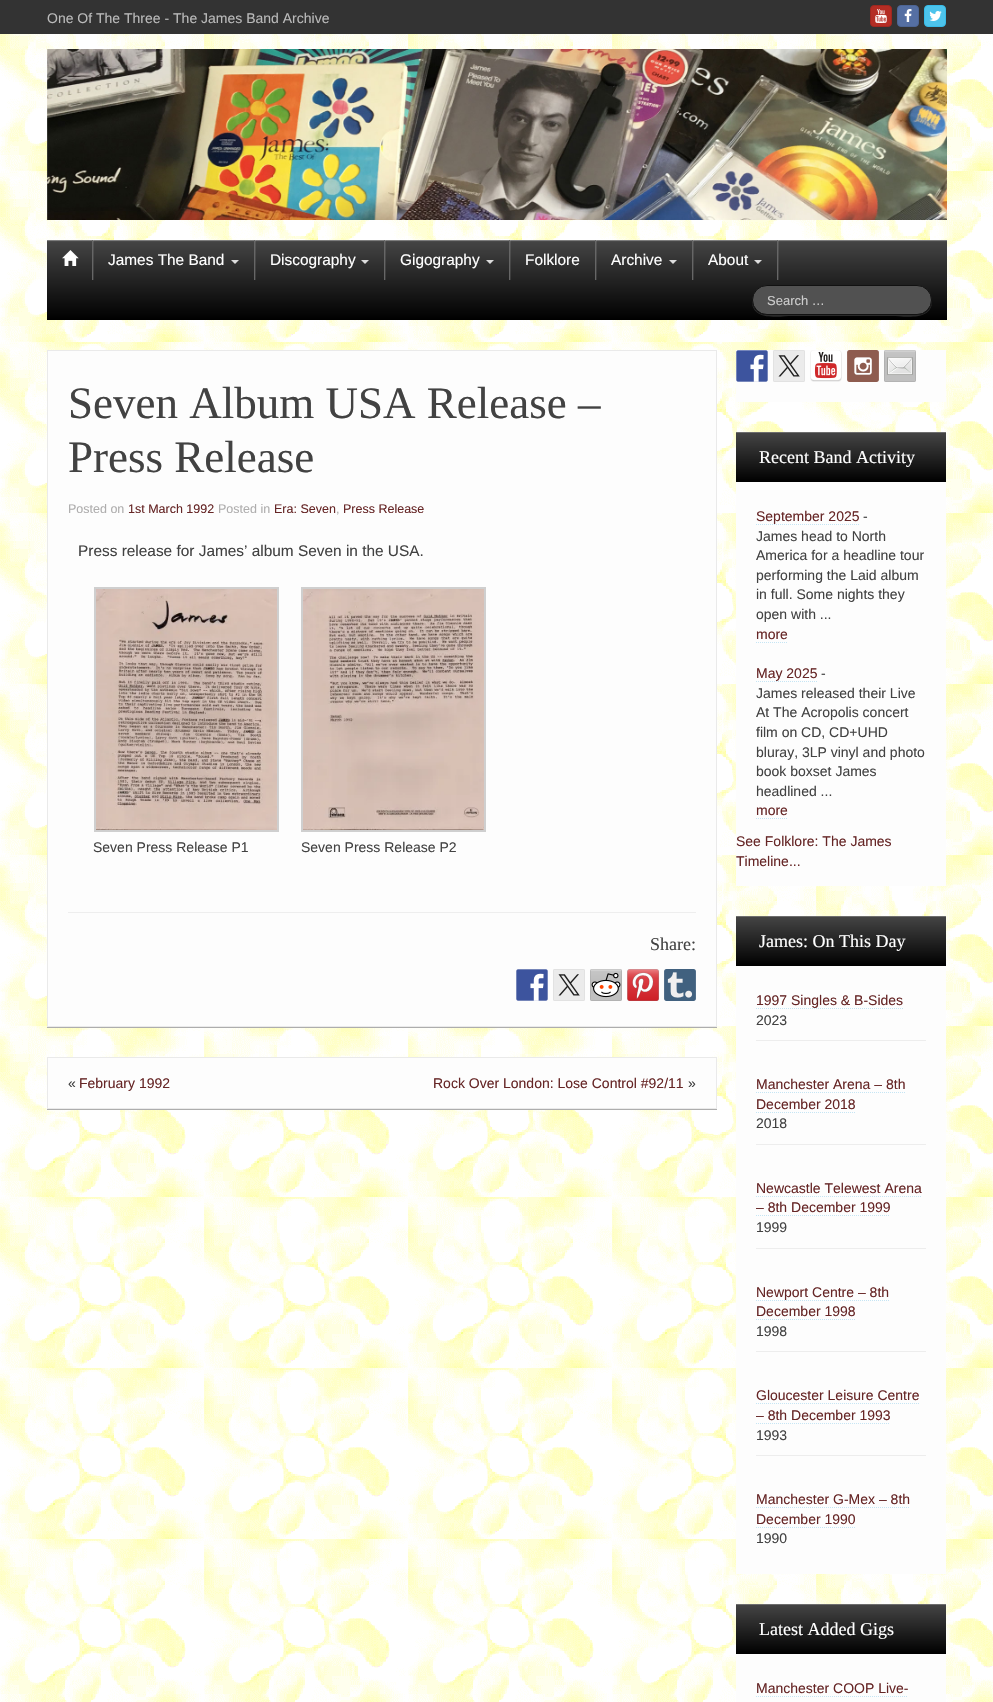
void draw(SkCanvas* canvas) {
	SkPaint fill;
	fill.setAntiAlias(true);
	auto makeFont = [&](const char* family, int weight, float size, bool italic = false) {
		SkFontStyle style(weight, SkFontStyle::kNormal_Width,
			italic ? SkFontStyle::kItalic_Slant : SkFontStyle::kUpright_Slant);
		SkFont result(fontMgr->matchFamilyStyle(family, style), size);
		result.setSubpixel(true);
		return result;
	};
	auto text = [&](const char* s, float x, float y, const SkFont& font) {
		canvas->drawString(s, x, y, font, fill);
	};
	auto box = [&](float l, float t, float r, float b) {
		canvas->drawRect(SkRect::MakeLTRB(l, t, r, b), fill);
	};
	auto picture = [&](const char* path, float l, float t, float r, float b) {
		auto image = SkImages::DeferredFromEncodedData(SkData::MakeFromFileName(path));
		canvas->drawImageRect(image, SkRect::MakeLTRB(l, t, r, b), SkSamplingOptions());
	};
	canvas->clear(0xFFFFFFFF);
	picture("image0.png", 0, 34, 993, 1702);
	fill.setColor(0xFF333333);
	box(0, 0, 993, 34);
	fill.setColor(0xFFB42D24);
	canvas->drawRoundRect(SkRect::MakeLTRB(870.5f, 5.5f, 891.5f, 26.5f), 3.5f, 3.5f, fill);
	fill.setStyle(SkPaint::kStroke_Style);
	fill.setStrokeWidth(1);
	fill.setColor(0xFF9F271F);
	canvas->drawRoundRect(SkRect::MakeLTRB(870.5f, 5.5f, 891.5f, 26.5f), 3.5f, 3.5f, fill);
	picture("image1.png", 875, 9, 887, 23);
	fill.setStyle(SkPaint::kFill_Style);
	fill.setColor(0xFF556FA3);
	canvas->drawRoundRect(SkRect::MakeLTRB(897.5f, 5.5f, 918.5f, 26.5f), 3.5f, 3.5f, fill);
	fill.setStyle(SkPaint::kStroke_Style);
	fill.setColor(0xFF4D6595);
	canvas->drawRoundRect(SkRect::MakeLTRB(897.5f, 5.5f, 918.5f, 26.5f), 3.5f, 3.5f, fill);
	picture("image2.png", 904, 9, 912, 22);
	fill.setStyle(SkPaint::kFill_Style);
	fill.setColor(0xFF4DC4EC);
	canvas->drawRoundRect(SkRect::MakeLTRB(924.5f, 5.5f, 945.5f, 26.5f), 3.5f, 3.5f, fill);
	fill.setStyle(SkPaint::kStroke_Style);
	fill.setColor(0xFF37BCE9);
	canvas->drawRoundRect(SkRect::MakeLTRB(924.5f, 5.5f, 945.5f, 26.5f), 3.5f, 3.5f, fill);
	picture("image3.png", 929, 11, 942, 21);
	picture("image4.png", 47, 49, 947, 220);
	fill.setStyle(SkPaint::kFill_Style);
	{
		const SkColor colors[] = {0xFF999999, 0xFF444444, 0xFF000000};
		const float stops[] = {0, 0.02f, 1};
		const SkPoint ends[] = {{497, 240}, {497, 320}};
		fill.setShader(SkGradientShader::MakeLinear(ends, colors, stops, 3, SkTileMode::kClamp));
		fill.setAlpha(255);
	}
	box(47, 240, 947, 320);
	fill.setShader(nullptr);
	fill.setColor(0x1AFFFFFF);
	box(93, 240, 94, 280);
	fill.setColor(0xFF666666);
	box(92, 240, 93, 280);
	picture("image5.png", 62, 250, 79, 266);
	fill.setColor(0x1AFFFFFF);
	box(255, 240, 256, 280);
	fill.setColor(0xFF666666);
	box(254, 240, 255, 280);
	fill.setColor(0xFFDDDDDD);
	canvas->drawPath(SkPathBuilder().moveTo(231, 260).lineTo(239, 260).lineTo(235, 264).close().detach(), fill);
	fill.setColor(0x1AFFFFFF);
	box(385, 240, 386, 280);
	fill.setColor(0xFF666666);
	box(384, 240, 385, 280);
	fill.setColor(0xFFDDDDDD);
	canvas->drawPath(SkPathBuilder().moveTo(361, 260).lineTo(369, 260).lineTo(365, 264).close().detach(), fill);
	fill.setColor(0x1AFFFFFF);
	box(510, 240, 511, 280);
	fill.setColor(0xFF666666);
	box(509, 240, 510, 280);
	fill.setColor(0xFFDDDDDD);
	canvas->drawPath(SkPathBuilder().moveTo(486, 260).lineTo(494, 260).lineTo(490, 264).close().detach(), fill);
	fill.setColor(0x1AFFFFFF);
	box(596, 240, 597, 280);
	fill.setColor(0xFF666666);
	box(595, 240, 596, 280);
	fill.setColor(0x1AFFFFFF);
	box(693, 240, 694, 280);
	fill.setColor(0xFF666666);
	box(692, 240, 693, 280);
	fill.setColor(0xFFDDDDDD);
	canvas->drawPath(SkPathBuilder().moveTo(669, 260).lineTo(677, 260).lineTo(673, 264).close().detach(), fill);
	fill.setColor(0x1AFFFFFF);
	box(778, 240, 779, 280);
	fill.setColor(0xFF666666);
	box(777, 240, 778, 280);
	fill.setColor(0xFFDDDDDD);
	canvas->drawPath(SkPathBuilder().moveTo(754, 260).lineTo(762, 260).lineTo(758, 264).close().detach(), fill);
	fill.setColor(0x26FFFFFF);
	canvas->drawPath(SkPathBuilder().moveTo(752, 300).cubicTo(751, 322, 781, 316, 792, 316).lineTo(892, 316).cubicTo(903, 316, 933, 322, 932, 300).cubicTo(932, 309, 925, 315, 917, 315).lineTo(767, 315).cubicTo(759, 315, 752, 309, 752, 300).close().detach(), fill);
	fill.setColor(0xFF515151);
	canvas->drawRoundRect(SkRect::MakeLTRB(752.5f, 285.5f, 931.5f, 314.5f), 14.5f, 14.5f, fill);
	fill.setStyle(SkPaint::kStroke_Style);
	fill.setColor(0xFF111111);
	canvas->drawRoundRect(SkRect::MakeLTRB(752.5f, 285.5f, 931.5f, 314.5f), 14.5f, 14.5f, fill);
	fill.setStyle(SkPaint::kFill_Style);
	fill.setColor(0xFFADADAD);
	box(47, 1027, 717, 1028);
	fill.setColor(0xFFFDFDFD);
	canvas->drawRect(SkRect::MakeLTRB(47.5f, 350.5f, 716.5f, 1026.5f), fill);
	fill.setStyle(SkPaint::kStroke_Style);
	fill.setColor(0xFFEAEAEA);
	canvas->drawRect(SkRect::MakeLTRB(47.5f, 350.5f, 716.5f, 1026.5f), fill);
	fill.setStrokeWidth(2);
	fill.setColor(0xFFCFCFCF);
	canvas->drawRect(SkRect::MakeLTRB(95, 588, 278, 831), fill);
	picture("image6.png", 96, 589, 277, 830);
	canvas->drawRect(SkRect::MakeLTRB(302, 588, 485, 831), fill);
	picture("image7.png", 303, 589, 484, 830);
	fill.setStyle(SkPaint::kFill_Style);
	fill.setColor(0xFFEEEEEE);
	box(68, 912, 696, 913);
	picture("image8.png", 516, 969, 548, 1001);
	picture("image9.png", 553, 969, 585, 1001);
	picture("image10.png", 590, 969, 622, 1001);
	picture("image11.png", 627, 969, 659, 1001);
	picture("image12.png", 664, 969, 696, 1001);
	fill.setColor(0xFFADADAD);
	box(47, 1109, 717, 1110);
	fill.setColor(0xFFFDFDFD);
	canvas->drawRect(SkRect::MakeLTRB(47.5f, 1057.5f, 716.5f, 1108.5f), fill);
	fill.setStyle(SkPaint::kStroke_Style);
	fill.setStrokeWidth(1);
	fill.setColor(0xFFEAEAEA);
	canvas->drawRect(SkRect::MakeLTRB(47.5f, 1057.5f, 716.5f, 1108.5f), fill);
	fill.setStyle(SkPaint::kFill_Style);
	fill.setColor(0xFFFDFDFD);
	box(736, 350, 946, 402);
	picture("image13.png", 736, 350, 768, 382);
	picture("image14.png", 773, 350, 805, 382);
	picture("image15.png", 810, 350, 842, 382);
	picture("image16.png", 847, 350, 879, 382);
	picture("image17.png", 884, 350, 916, 382);
	box(736, 482, 946, 886);
	{
		const SkColor colors[] = {0xFF999999, 0xFF444444, 0xFF000000};
		const float stops[] = {0, 0.02f, 1};
		const SkPoint ends[] = {{841, 432}, {841, 482}};
		fill.setShader(SkGradientShader::MakeLinear(ends, colors, stops, 3, SkTileMode::kClamp));
		fill.setAlpha(255);
	}
	box(736, 432, 946, 482);
	fill.setStyle(SkPaint::kStroke_Style);
	fill.setShader(nullptr);
	fill.setColor(0xFFC5E5F4);
	fill.setPathEffect(SkDashPathEffect::Make({{1, 1}}, 0));
	canvas->drawPath(SkPathBuilder().moveTo(756, 524.5f).lineTo(859, 524.5f).detach(), fill);
	fill.setPathEffect(nullptr);
	fill.setPathEffect(SkDashPathEffect::Make({{1, 1}}, 0));
	canvas->drawPath(SkPathBuilder().moveTo(756, 642.5f).lineTo(788, 642.5f).detach(), fill);
	fill.setPathEffect(nullptr);
	fill.setPathEffect(SkDashPathEffect::Make({{1, 1}}, 0));
	canvas->drawPath(SkPathBuilder().moveTo(756, 681.5f).lineTo(817, 681.5f).detach(), fill);
	fill.setPathEffect(nullptr);
	fill.setPathEffect(SkDashPathEffect::Make({{1, 1}}, 0));
	canvas->drawPath(SkPathBuilder().moveTo(756, 818.5f).lineTo(788, 818.5f).detach(), fill);
	fill.setPathEffect(nullptr);
	fill.setStyle(SkPaint::kFill_Style);
	fill.setColor(0xFFFDFDFD);
	box(736, 966, 946, 1574);
	{
		const SkColor colors[] = {0xFF999999, 0xFF444444, 0xFF000000};
		const float stops[] = {0, 0.02f, 1};
		const SkPoint ends[] = {{841, 916}, {841, 966}};
		fill.setShader(SkGradientShader::MakeLinear(ends, colors, stops, 3, SkTileMode::kClamp));
		fill.setAlpha(255);
	}
	box(736, 916, 946, 966);
	fill.setShader(nullptr);
	fill.setColor(0xFFEDEDED);
	box(756, 1040, 926, 1041);
	fill.setStyle(SkPaint::kStroke_Style);
	fill.setColor(0xFFC5E5F4);
	fill.setPathEffect(SkDashPathEffect::Make({{1, 1}}, 0));
	canvas->drawPath(SkPathBuilder().moveTo(756, 1008.5f).lineTo(903, 1008.5f).detach(), fill);
	fill.setPathEffect(nullptr);
	fill.setStyle(SkPaint::kFill_Style);
	fill.setColor(0xFFEDEDED);
	box(756, 1144, 926, 1145);
	fill.setStyle(SkPaint::kStroke_Style);
	fill.setColor(0xFFC5E5F4);
	fill.setPathEffect(SkDashPathEffect::Make({{1, 1}}, 0));
	canvas->drawPath(SkPathBuilder().moveTo(756, 1092.5f).lineTo(905, 1092.5f).detach(), fill);
	fill.setPathEffect(nullptr);
	fill.setPathEffect(SkDashPathEffect::Make({{1, 1}}, 0));
	canvas->drawPath(SkPathBuilder().moveTo(756, 1112.5f).lineTo(855, 1112.5f).detach(), fill);
	fill.setPathEffect(nullptr);
	fill.setStyle(SkPaint::kFill_Style);
	fill.setColor(0xFFEDEDED);
	box(756, 1248, 926, 1249);
	fill.setStyle(SkPaint::kStroke_Style);
	fill.setColor(0xFFC5E5F4);
	fill.setPathEffect(SkDashPathEffect::Make({{1, 1}}, 0));
	canvas->drawPath(SkPathBuilder().moveTo(756, 1196.5f).lineTo(922, 1196.5f).detach(), fill);
	fill.setPathEffect(nullptr);
	fill.setPathEffect(SkDashPathEffect::Make({{1, 1}}, 0));
	canvas->drawPath(SkPathBuilder().moveTo(756, 1215.5f).lineTo(890, 1215.5f).detach(), fill);
	fill.setPathEffect(nullptr);
	fill.setStyle(SkPaint::kFill_Style);
	fill.setColor(0xFFEDEDED);
	box(756, 1351, 926, 1352);
	fill.setStyle(SkPaint::kStroke_Style);
	fill.setColor(0xFFC5E5F4);
	fill.setPathEffect(SkDashPathEffect::Make({{1, 1}}, 0));
	canvas->drawPath(SkPathBuilder().moveTo(756, 1300.5f).lineTo(889, 1300.5f).detach(), fill);
	fill.setPathEffect(nullptr);
	fill.setPathEffect(SkDashPathEffect::Make({{1, 1}}, 0));
	canvas->drawPath(SkPathBuilder().moveTo(756, 1319.5f).lineTo(855, 1319.5f).detach(), fill);
	fill.setPathEffect(nullptr);
	fill.setStyle(SkPaint::kFill_Style);
	fill.setColor(0xFFEDEDED);
	box(756, 1455, 926, 1456);
	fill.setStyle(SkPaint::kStroke_Style);
	fill.setColor(0xFFC5E5F4);
	fill.setPathEffect(SkDashPathEffect::Make({{1, 1}}, 0));
	canvas->drawPath(SkPathBuilder().moveTo(756, 1403.5f).lineTo(919, 1403.5f).detach(), fill);
	fill.setPathEffect(nullptr);
	fill.setPathEffect(SkDashPathEffect::Make({{1, 1}}, 0));
	canvas->drawPath(SkPathBuilder().moveTo(756, 1423.5f).lineTo(890, 1423.5f).detach(), fill);
	fill.setPathEffect(nullptr);
	fill.setPathEffect(SkDashPathEffect::Make({{1, 1}}, 0));
	canvas->drawPath(SkPathBuilder().moveTo(756, 1507.5f).lineTo(910, 1507.5f).detach(), fill);
	fill.setPathEffect(nullptr);
	fill.setPathEffect(SkDashPathEffect::Make({{1, 1}}, 0));
	canvas->drawPath(SkPathBuilder().moveTo(756, 1527.5f).lineTo(855, 1527.5f).detach(), fill);
	fill.setPathEffect(nullptr);
	fill.setStyle(SkPaint::kFill_Style);
	fill.setColor(0xFFFDFDFD);
	box(736, 1654, 946, 1702);
	{
		const SkColor colors[] = {0xFF999999, 0xFF444444, 0xFF000000};
		const float stops[] = {0, 0.02f, 1};
		const SkPoint ends[] = {{841, 1604}, {841, 1654}};
		fill.setShader(SkGradientShader::MakeLinear(ends, colors, stops, 3, SkTileMode::kClamp));
		fill.setAlpha(255);
	}
	box(736, 1604, 946, 1654);
	fill.setStyle(SkPaint::kStroke_Style);
	fill.setShader(nullptr);
	fill.setColor(0xFFC5E5F4);
	fill.setPathEffect(SkDashPathEffect::Make({{1, 1}}, 0));
	canvas->drawPath(SkPathBuilder().moveTo(756, 1696.5f).lineTo(908, 1696.5f).detach(), fill);
	fill.setPathEffect(nullptr);
	auto font1 = makeFont("Liberation Sans", 400, 14);
	fill.setStyle(SkPaint::kFill_Style);
	fill.setColor(0xFFBABABA);
	text("One Of The Three - The James Band Archive", 47, 23, font1);
	auto font2 = makeFont("Liberation Sans", 400, 15.4f);
	fill.setColor(0xFFFFFFFF);
	text("James The Band", 108, 265, font2);
	text("Discography", 270, 265, font2);
	text("Gigography", 400, 265, font2);
	text("Folklore", 525, 265, font2);
	text("Archive", 611, 265, font2);
	text("About", 708, 265, font2);
	auto font3 = makeFont("Liberation Sans", 400, 13);
	fill.setColor(0xFFCCCCCC);
	text("Search …", 767, 305, font3);
	auto font4 = makeFont("Liberation Serif", 400, 45);
	fill.setColor(0xFF424242);
	text("Seven Album USA Release –", 68, 418, font4);
	text("Press Release", 68, 472, font4);
	auto font5 = makeFont("Liberation Sans", 400, 12.5f);
	fill.setColor(0xFFAFAEAE);
	text("Posted on", 68, 513, font5);
	fill.setColor(0xFF662626);
	text("1st March 1992", 128, 513, font5);
	fill.setColor(0xFFAFAEAE);
	text("Posted in", 218, 513, font5);
	fill.setColor(0xFF662626);
	text("Era: Seven", 274, 513, font5);
	fill.setColor(0xFFAFAEAE);
	text(",", 336, 513, font5);
	fill.setColor(0xFF662626);
	text("Press Release", 343, 513, font5);
	fill.setColor(0xFF424242);
	text("Press release for James’ album Seven in the USA.", 78, 556, font2);
	text("Seven Press Release P1", 93, 852, font1);
	text("Seven Press Release P2", 301, 852, font1);
	auto font6 = makeFont("Liberation Serif", 400, 18);
	text("Share:", 650, 950, font6);
	text("«", 68, 1088, font1);
	fill.setColor(0xFF662626);
	text("February 1992", 79, 1088, font1);
	text("Rock Over London: Lose Control #92/11", 433, 1088, font1);
	fill.setColor(0xFF424242);
	text("»", 688, 1088, font1);
	fill.setColor(0xFFFFFFFF);
	text("Recent Band Activity", 759, 463, font6);
	fill.setColor(0xFF662626);
	text("September 2025", 756, 521, font1);
	fill.setColor(0xFF424242);
	text("-", 863, 521, font1);
	text("James head to North", 756, 541, font1);
	text("America for a headline tour", 756, 560, font1);
	text("performing the Laid album", 756, 580, font1);
	text("in full. Some nights they", 756, 599, font1);
	text("open with ...", 756, 619, font1);
	fill.setColor(0xFF662626);
	text("more", 756, 639, font1);
	text("May 2025", 756, 678, font1);
	fill.setColor(0xFF424242);
	text("-", 821, 678, font1);
	text("James released their Live", 756, 698, font1);
	text("At The Acropolis concert", 756, 717, font1);
	text("film on CD, CD+UHD", 756, 737, font1);
	text("bluray, 3LP vinyl and photo", 756, 757, font1);
	text("book boxset James", 756, 776, font1);
	text("headlined ...", 756, 796, font1);
	fill.setColor(0xFF662626);
	text("more", 756, 815, font1);
	text("See Folklore: The James", 736, 846, font1);
	text("Timeline...", 736, 866, font1);
	fill.setColor(0xFFFFFFFF);
	text("James: On This Day", 759, 947, font6);
	fill.setColor(0xFF662626);
	text("1997 Singles & B-Sides", 756, 1005, font1);
	fill.setColor(0xFF424242);
	text("2023", 756, 1025, font1);
	fill.setColor(0xFF662626);
	text("Manchester Arena – 8th", 756, 1089, font1);
	text("December 2018", 756, 1109, font1);
	fill.setColor(0xFF424242);
	text("2018", 756, 1128, font1);
	fill.setColor(0xFF662626);
	text("Newcastle Telewest Arena", 756, 1193, font1);
	text("– 8th December 1999", 756, 1212, font1);
	fill.setColor(0xFF424242);
	text("1999", 756, 1232, font1);
	fill.setColor(0xFF662626);
	text("Newport Centre – 8th", 756, 1297, font1);
	text("December 1998", 756, 1316, font1);
	fill.setColor(0xFF424242);
	text("1998", 756, 1336, font1);
	fill.setColor(0xFF662626);
	text("Gloucester Leisure Centre", 756, 1400, font1);
	text("– 8th December 1993", 756, 1420, font1);
	fill.setColor(0xFF424242);
	text("1993", 756, 1440, font1);
	fill.setColor(0xFF662626);
	text("Manchester G-Mex – 8th", 756, 1504, font1);
	text("December 1990", 756, 1524, font1);
	fill.setColor(0xFF424242);
	text("1990", 756, 1543, font1);
	fill.setColor(0xFFFFFFFF);
	text("Latest Added Gigs", 759, 1635, font6);
	fill.setColor(0xFF662626);
	text("Manchester COOP Live-", 756, 1693, font1);
}
